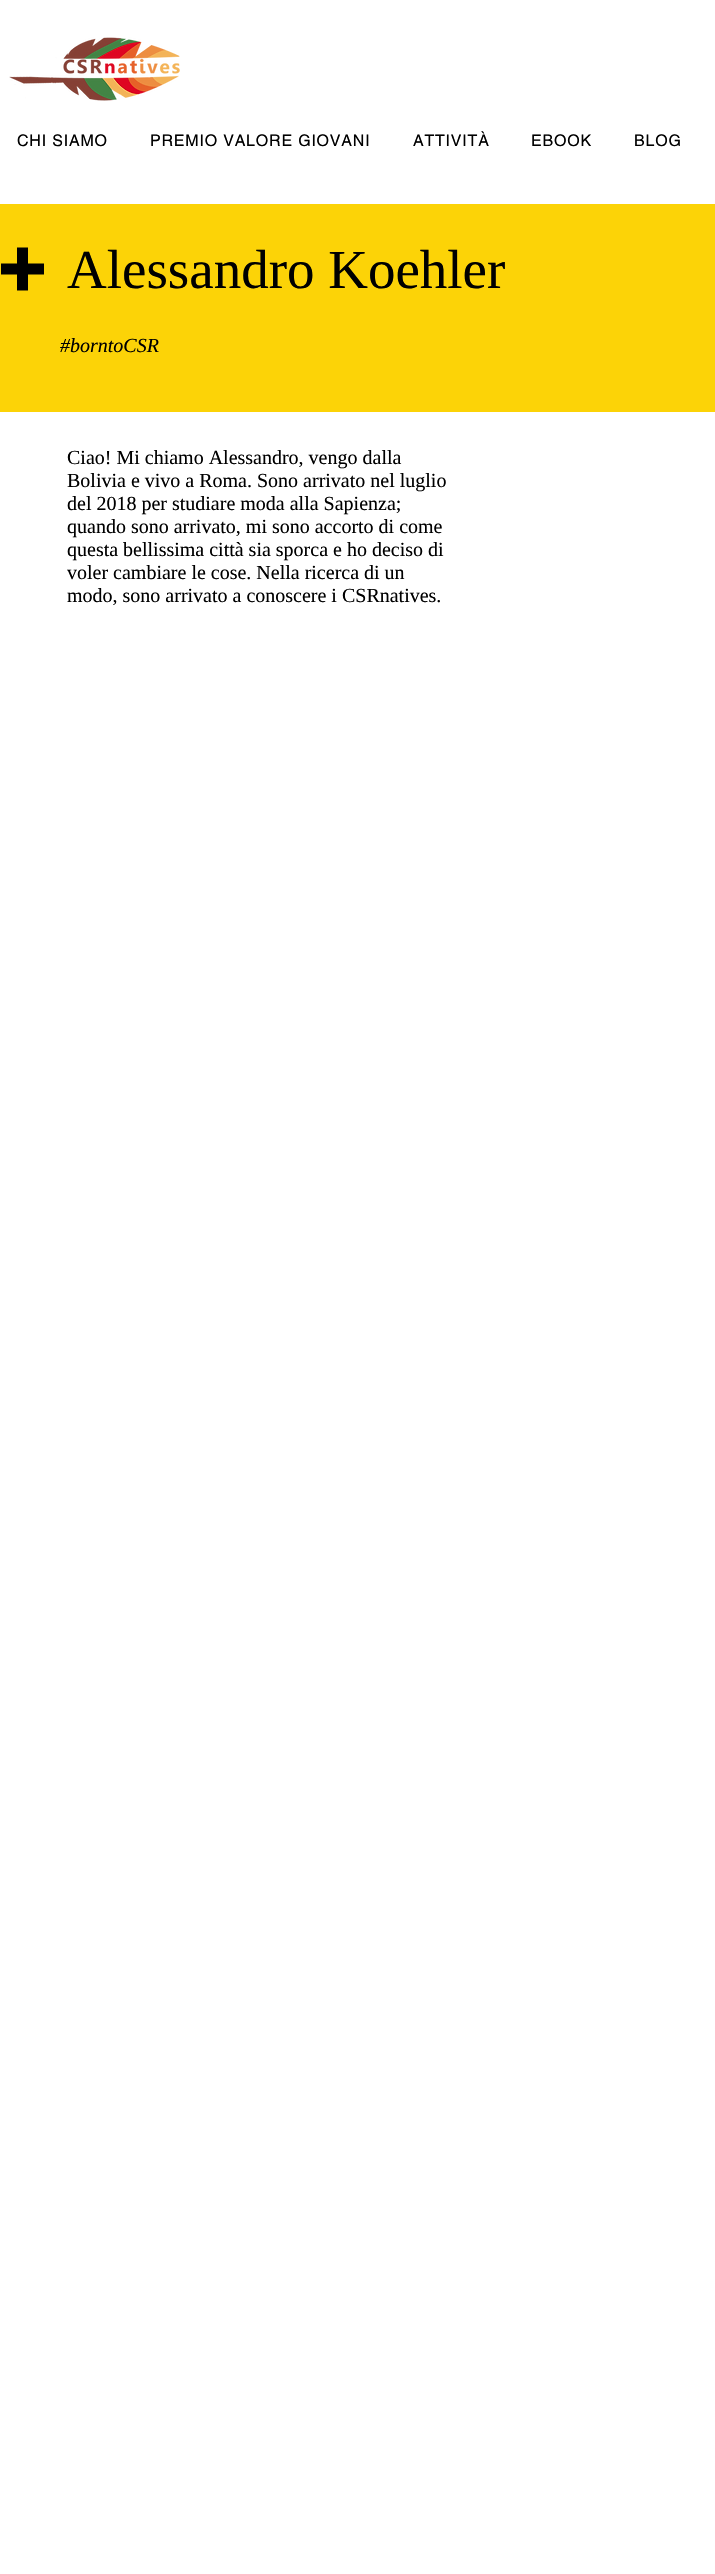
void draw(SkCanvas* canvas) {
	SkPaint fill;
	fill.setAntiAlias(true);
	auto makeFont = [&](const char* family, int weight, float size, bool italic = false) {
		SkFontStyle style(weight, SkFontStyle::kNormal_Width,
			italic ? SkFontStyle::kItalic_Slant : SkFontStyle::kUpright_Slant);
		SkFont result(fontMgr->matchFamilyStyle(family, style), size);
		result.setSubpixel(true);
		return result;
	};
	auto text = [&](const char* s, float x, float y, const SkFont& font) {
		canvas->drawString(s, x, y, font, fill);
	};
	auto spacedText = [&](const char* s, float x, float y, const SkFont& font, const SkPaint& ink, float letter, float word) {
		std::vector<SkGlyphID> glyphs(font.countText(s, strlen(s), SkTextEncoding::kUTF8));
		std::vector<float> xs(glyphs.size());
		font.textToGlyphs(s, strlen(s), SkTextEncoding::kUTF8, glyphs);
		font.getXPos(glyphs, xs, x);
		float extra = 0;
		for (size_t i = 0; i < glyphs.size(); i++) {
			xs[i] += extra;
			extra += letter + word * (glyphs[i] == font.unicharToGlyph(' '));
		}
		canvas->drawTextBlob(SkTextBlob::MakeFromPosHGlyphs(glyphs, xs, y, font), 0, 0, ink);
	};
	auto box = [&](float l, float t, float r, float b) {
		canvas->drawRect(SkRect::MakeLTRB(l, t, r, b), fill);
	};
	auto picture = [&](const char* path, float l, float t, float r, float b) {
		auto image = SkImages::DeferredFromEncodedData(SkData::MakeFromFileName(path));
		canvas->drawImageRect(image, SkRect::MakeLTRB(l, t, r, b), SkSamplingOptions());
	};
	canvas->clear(0xFFFFFFFF);
	picture("image0.png", 9, 37, 180, 101);
	fill.setColor(0xFFFCD307);
	box(0, 204, 715, 412);
	fill.setStyle(SkPaint::kStroke_Style);
	fill.setStrokeWidth(9);
	fill.setColor(0xFF000000);
	canvas->drawPath(SkPathBuilder().moveTo(39.5f, 268).lineTo(23.5f, 268).lineTo(23.5f, 252).lineTo(21.5f, 252).lineTo(21.5f, 268).lineTo(5.5f, 268).lineTo(5.5f, 270).lineTo(21.5f, 270).lineTo(21.5f, 286).lineTo(23.5f, 286).lineTo(23.5f, 270).lineTo(39.5f, 270).close().detach(), fill);
	auto font1 = makeFont("helvetica", 400, 16);
	fill.setStyle(SkPaint::kFill_Style);
	spacedText("CHI SIAMO", 17, 146, font1, fill, 0.8f, 0);
	spacedText("PREMIO VALORE GIOVANI", 150, 146, font1, fill, 0.8f, 0);
	spacedText("ATTIVITÀ", 413, 146, font1, fill, 0.8f, 0);
	spacedText("EBOOK", 531, 146, font1, fill, 0.8f, 0);
	spacedText("BLOG", 634, 146, font1, fill, 0.8f, 0);
	auto font2 = makeFont("Liberation Serif", 400, 55);
	text("Alessandro Koehler", 67, 288, font2);
	auto font3 = makeFont("Liberation Serif", 400, 20, true);
	text("#borntoCSR", 60, 352, font3);
	auto font4 = makeFont("Liberation Serif", 400, 20);
	text("Ciao! Mi chiamo Alessandro, vengo dalla", 67, 464, font4);
	text("Bolivia e vivo a Roma. Sono arrivato nel luglio", 67, 487, font4);
	text("del 2018 per studiare moda alla Sapienza;", 67, 510, font4);
	text("quando sono arrivato, mi sono accorto di come", 67, 533, font4);
	text("questa bellissima città sia sporca e ho deciso di", 67, 556, font4);
	text("voler cambiare le cose. Nella ricerca di un", 67, 579, font4);
	text("modo, sono arrivato a conoscere i CSRnatives.", 67, 602, font4);
}
